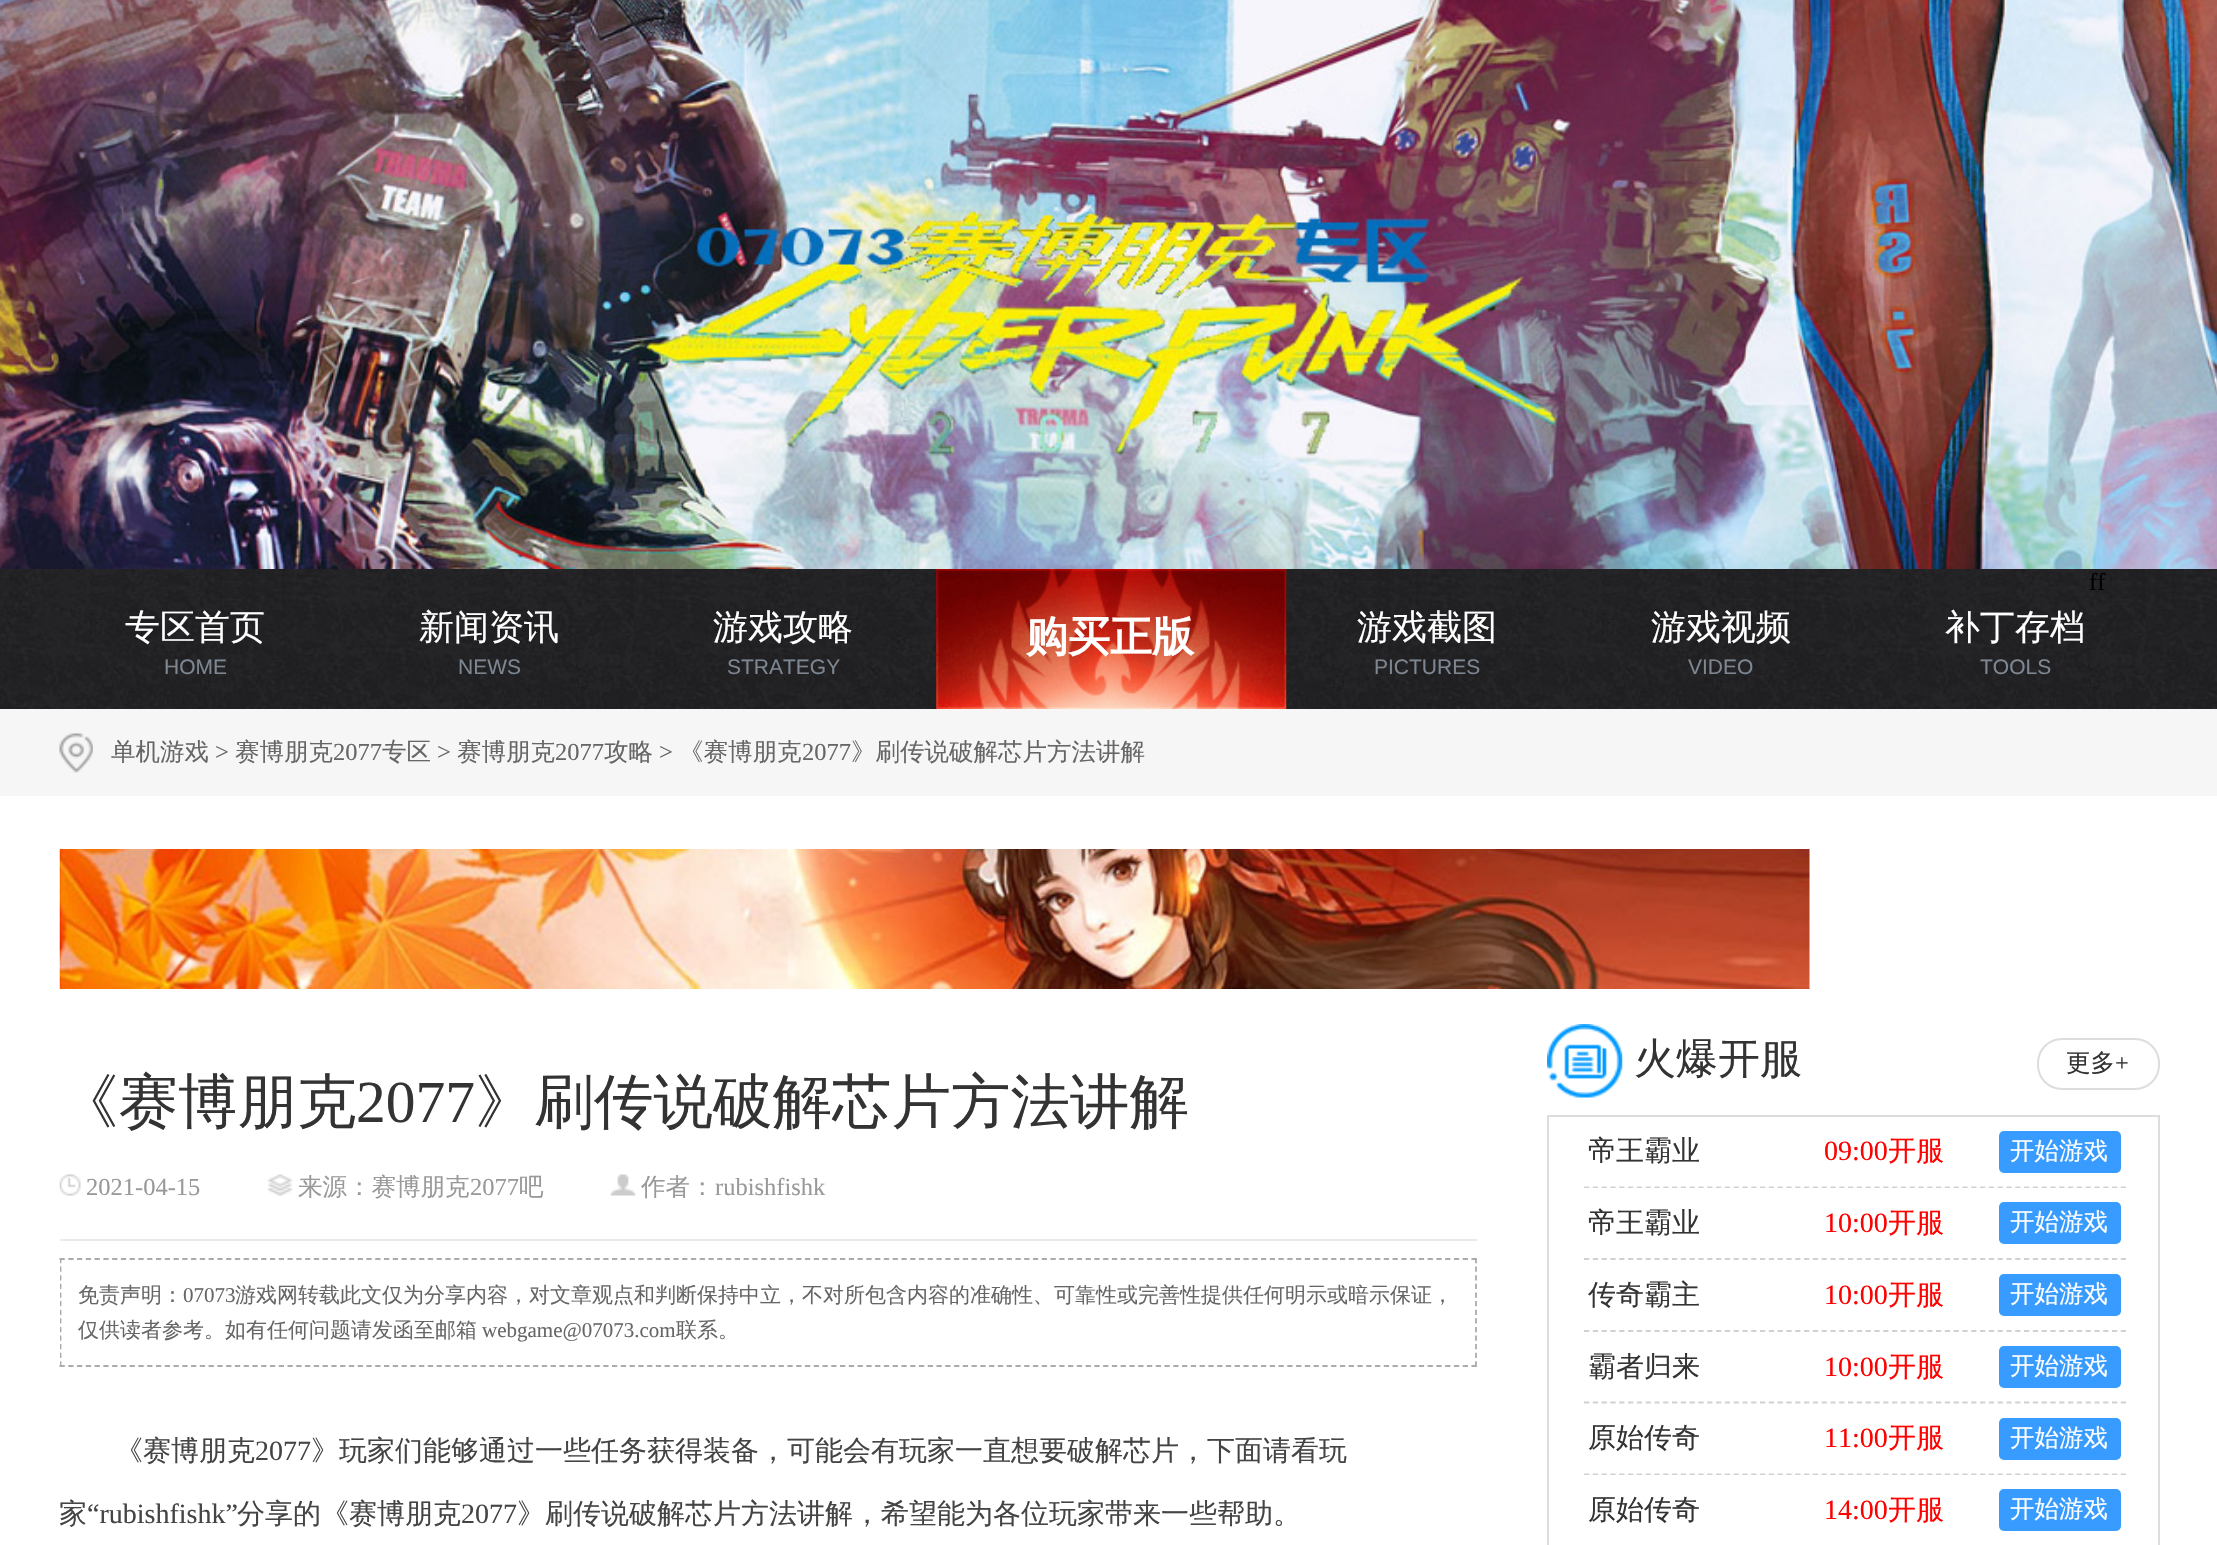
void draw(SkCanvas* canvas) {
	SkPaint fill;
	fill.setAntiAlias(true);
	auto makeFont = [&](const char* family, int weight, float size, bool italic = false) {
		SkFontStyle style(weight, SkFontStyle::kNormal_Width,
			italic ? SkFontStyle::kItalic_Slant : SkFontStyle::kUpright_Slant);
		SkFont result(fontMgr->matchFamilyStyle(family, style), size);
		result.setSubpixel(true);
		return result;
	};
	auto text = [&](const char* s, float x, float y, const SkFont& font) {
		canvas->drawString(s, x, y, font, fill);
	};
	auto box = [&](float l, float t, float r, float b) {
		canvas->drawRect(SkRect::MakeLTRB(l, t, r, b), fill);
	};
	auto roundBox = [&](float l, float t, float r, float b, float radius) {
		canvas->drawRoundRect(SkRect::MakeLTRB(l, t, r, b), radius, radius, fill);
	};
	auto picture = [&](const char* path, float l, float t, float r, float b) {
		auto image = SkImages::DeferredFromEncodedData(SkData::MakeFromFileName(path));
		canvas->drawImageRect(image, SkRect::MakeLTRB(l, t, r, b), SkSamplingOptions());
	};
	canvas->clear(0xFFFFFFFF);
	picture("image0.png", 0, 0, 2217, 569);
	picture("image1.png", 0, 569, 2217, 709);
	picture("image2.png", 936, 569, 1287, 709);
	fill.setColor(0xFFF6F6F6);
	box(0, 709, 2217, 796);
	picture("image3.png", 59, 733, 93, 773);
	picture("image4.png", 59, 849, 1810, 989);
	fill.setColor(0xFFEAEAEA);
	box(60, 1239, 1477, 1241);
	picture("image5.png", 59, 1174, 81, 1196);
	picture("image6.png", 267, 1174, 293, 1196);
	picture("image7.png", 610, 1174, 636, 1196);
	fill.setStyle(SkPaint::kStroke_Style);
	fill.setStrokeWidth(1.8f);
	fill.setColor(0xFFABABAB);
	fill.setPathEffect(SkDashPathEffect::Make({{5.25f, 3.52f}}, 0));
	canvas->drawPath(SkPathBuilder().moveTo(59.5f, 1259).lineTo(1477, 1259).detach(), fill);
	fill.setPathEffect(nullptr);
	fill.setPathEffect(SkDashPathEffect::Make({{5.25f, 3.36f}}, 0));
	canvas->drawPath(SkPathBuilder().moveTo(1476, 1258).lineTo(1476, 1367).detach(), fill);
	fill.setPathEffect(nullptr);
	fill.setPathEffect(SkDashPathEffect::Make({{5.25f, 3.52f}}, 0));
	canvas->drawPath(SkPathBuilder().moveTo(59.5f, 1366).lineTo(1477, 1366).detach(), fill);
	fill.setPathEffect(nullptr);
	canvas->save();
	canvas->clipRect(SkRect::MakeLTRB(60, 1241, 1477, 1367));
	fill.setPathEffect(SkDashPathEffect::Make({{5.25f, 3.36f}}, 0));
	canvas->drawPath(SkPathBuilder().moveTo(60.5f, 1258).lineTo(60.5f, 1367).detach(), fill);
	fill.setPathEffect(nullptr);
	canvas->restore();
	picture("image8.png", 1547, 1024, 1623, 1098);
	fill.setStrokeWidth(2);
	fill.setColor(0xFFDDDDDD);
	canvas->drawRoundRect(SkRect::MakeLTRB(2038, 1039, 2159, 1089), 24, 24, fill);
	canvas->drawRect(SkRect::MakeLTRB(1548, 1116, 2159, 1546), fill);
	canvas->save();
	canvas->clipRect(SkRect::MakeLTRB(1584, 1117, 2126, 1188));
	fill.setStrokeWidth(1.8f);
	fill.setColor(0xFFD1D1D1);
	fill.setPathEffect(SkDashPathEffect::Make({{5.25f, 3.55f}}, 0));
	canvas->drawPath(SkPathBuilder().moveTo(1584, 1187.5f).lineTo(2126, 1187.5f).detach(), fill);
	fill.setPathEffect(nullptr);
	canvas->restore();
	fill.setStyle(SkPaint::kFill_Style);
	fill.setColor(0xFF389BFF);
	roundBox(1999, 1131, 2121, 1173, 5);
	fill.setStyle(SkPaint::kStroke_Style);
	fill.setColor(0xFFD1D1D1);
	fill.setPathEffect(SkDashPathEffect::Make({{5.25f, 3.55f}}, 0));
	canvas->drawPath(SkPathBuilder().moveTo(1584, 1259).lineTo(2126, 1259).detach(), fill);
	fill.setPathEffect(nullptr);
	fill.setStyle(SkPaint::kFill_Style);
	fill.setColor(0xFF389BFF);
	roundBox(1999, 1202, 2121, 1244, 5);
	fill.setStyle(SkPaint::kStroke_Style);
	fill.setColor(0xFFD1D1D1);
	fill.setPathEffect(SkDashPathEffect::Make({{5.25f, 3.55f}}, 0));
	canvas->drawPath(SkPathBuilder().moveTo(1584, 1331).lineTo(2126, 1331).detach(), fill);
	fill.setPathEffect(nullptr);
	fill.setStyle(SkPaint::kFill_Style);
	fill.setColor(0xFF389BFF);
	roundBox(1999, 1274, 2121, 1316, 5);
	fill.setStyle(SkPaint::kStroke_Style);
	fill.setColor(0xFFD1D1D1);
	fill.setPathEffect(SkDashPathEffect::Make({{5.25f, 3.55f}}, 0));
	canvas->drawPath(SkPathBuilder().moveTo(1584, 1402.5f).lineTo(2126, 1402.5f).detach(), fill);
	fill.setPathEffect(nullptr);
	fill.setStyle(SkPaint::kFill_Style);
	fill.setColor(0xFF389BFF);
	roundBox(1999, 1346, 2121, 1388, 5);
	canvas->save();
	canvas->clipRect(SkRect::MakeLTRB(1584, 1404, 2126, 1475));
	fill.setStyle(SkPaint::kStroke_Style);
	fill.setColor(0xFFD1D1D1);
	fill.setPathEffect(SkDashPathEffect::Make({{5.25f, 3.55f}}, 0));
	canvas->drawPath(SkPathBuilder().moveTo(1584, 1474.5f).lineTo(2126, 1474.5f).detach(), fill);
	fill.setPathEffect(nullptr);
	canvas->restore();
	fill.setStyle(SkPaint::kFill_Style);
	fill.setColor(0xFF389BFF);
	roundBox(1999, 1418, 2121, 1460, 5);
	roundBox(1999, 1489, 2121, 1531, 5);
	auto font1 = makeFont("Liberation Serif", 400, 24.5f);
	fill.setColor(0xFF000000);
	text("ff", 2089, 590, font1);
	auto font2 = makeFont("WenQuanYi Zen Hei", 500, 35);
	fill.setColor(0xFFFFFFFF);
	text("专区首页", 125, 639, font2);
	auto font3 = makeFont("Liberation Sans", 400, 21);
	fill.setColor(0xFF7D8691);
	text("HOME", 164, 674, font3);
	fill.setColor(0xFFFFFFFF);
	text("新闻资讯", 419, 639, font2);
	fill.setColor(0xFF7D8691);
	text("NEWS", 458, 674, font3);
	fill.setColor(0xFFFFFFFF);
	text("游戏攻略", 713, 639, font2);
	fill.setColor(0xFF7D8691);
	text("STRATEGY", 727, 674, font3);
	fill.setColor(0xFFFFFFFF);
	text("游戏截图", 1357, 639, font2);
	fill.setColor(0xFF7D8691);
	text("PICTURES", 1374, 674, font3);
	fill.setColor(0xFFFFFFFF);
	text("游戏视频", 1651, 639, font2);
	fill.setColor(0xFF7D8691);
	text("VIDEO", 1688, 674, font3);
	fill.setColor(0xFFFFFFFF);
	text("补丁存档", 1945, 639, font2);
	fill.setColor(0xFF7D8691);
	text("TOOLS", 1980, 674, font3);
	auto font4 = makeFont("WenQuanYi Zen Hei", 700, 42);
	fill.setColor(0xFFFFFFFF);
	text("购买正版", 1026, 651, font4);
	auto font5 = makeFont("WenQuanYi Zen Hei", 500, 24.5f);
	fill.setColor(0xFF666666);
	text("单机游戏", 111, 760, font5);
	text(">", 215, 760, font1);
	text("赛博朋克", 235, 760, font5);
	text("2077", 333, 760, font1);
	text("专区", 382, 760, font5);
	text(">", 437, 760, font1);
	text("赛博朋克", 457, 760, font5);
	text("2077", 555, 760, font1);
	text("攻略", 604, 760, font5);
	text(">", 659, 760, font1);
	text("《赛博朋克", 679, 760, font5);
	text("2077", 802, 760, font1);
	text("》刷传说破解芯片方法讲解", 851, 760, font5);
	auto font6 = makeFont("WenQuanYi Zen Hei", 500, 59.5f);
	fill.setColor(0xFF333333);
	text("《赛博朋克", 59, 1122, font6);
	auto font7 = makeFont("Liberation Serif", 400, 59.5f);
	text("2077", 356, 1122, font7);
	text("》刷传说破解芯片方法讲解", 475, 1122, font6);
	fill.setColor(0xFF999999);
	text("2021-04-15", 86, 1195, font1);
	text("来源：赛博朋克", 298, 1195, font5);
	text("2077", 470, 1195, font1);
	text("吧", 519, 1195, font5);
	text("作者：", 641, 1195, font5);
	text("rubishfishk", 715, 1195, font1);
	auto font8 = makeFont("WenQuanYi Zen Hei", 500, 21);
	fill.setColor(0xFF666666);
	text("免责声明：", 78, 1302, font8);
	auto font9 = makeFont("Liberation Serif", 400, 21);
	text("07073", 183, 1302, font9);
	text("游戏网转载此文仅为分享内容，对文章观点和判断保持中立，不对所包含内容的准确性、可靠性或完善性提供任何明示或暗示保证，", 235, 1302, font8);
	text("仅供读者参考。如有任何问题请发函至邮箱", 78, 1337, font8);
	text("webgame@07073.com", 482, 1337, font9);
	text("联系。", 676, 1337, font8);
	auto font10 = makeFont("WenQuanYi Zen Hei", 500, 28);
	fill.setColor(0xFF444444);
	text("《赛博朋克", 115, 1460, font10);
	auto font11 = makeFont("Liberation Serif", 400, 28);
	text("2077", 255, 1460, font11);
	text("》玩家们能够通过一些任务获得装备，可能会有玩家一直想要破解芯片，下面请看玩", 311, 1460, font10);
	text("家", 59, 1523, font10);
	text("“rubishfishk”", 87, 1523, font11);
	text("分享的《赛博朋克", 237, 1523, font10);
	text("2077", 461, 1523, font11);
	text("》刷传说破解芯片方法讲解，希望能为各位玩家带来一些帮助。", 517, 1523, font10);
	auto font12 = makeFont("WenQuanYi Zen Hei", 500, 42);
	fill.setColor(0xFF333333);
	text("火爆开服", 1634, 1073, font12);
	text("更多", 2066, 1071, font5);
	text("+", 2115, 1071, font1);
	text("帝王霸业", 1588, 1160, font10);
	fill.setColor(0xFFFF0000);
	text("09:00", 1824, 1160, font11);
	text("开服", 1888, 1160, font10);
	fill.setColor(0xFFFFFFFF);
	text("开始游戏", 2010, 1159, font5);
	fill.setColor(0xFF333333);
	text("帝王霸业", 1588, 1232, font10);
	fill.setColor(0xFFFF0000);
	text("10:00", 1824, 1232, font11);
	text("开服", 1888, 1232, font10);
	fill.setColor(0xFFFFFFFF);
	text("开始游戏", 2010, 1230, font5);
	fill.setColor(0xFF333333);
	text("传奇霸主", 1588, 1304, font10);
	fill.setColor(0xFFFF0000);
	text("10:00", 1824, 1304, font11);
	text("开服", 1888, 1304, font10);
	fill.setColor(0xFFFFFFFF);
	text("开始游戏", 2010, 1302, font5);
	fill.setColor(0xFF333333);
	text("霸者归来", 1588, 1376, font10);
	fill.setColor(0xFFFF0000);
	text("10:00", 1824, 1376, font11);
	text("开服", 1888, 1376, font10);
	fill.setColor(0xFFFFFFFF);
	text("开始游戏", 2010, 1374, font5);
	fill.setColor(0xFF333333);
	text("原始传奇", 1588, 1447, font10);
	fill.setColor(0xFFFF0000);
	text("11:00", 1824, 1447, font11);
	text("开服", 1888, 1447, font10);
	fill.setColor(0xFFFFFFFF);
	text("开始游戏", 2010, 1446, font5);
	fill.setColor(0xFF333333);
	text("原始传奇", 1588, 1519, font10);
	fill.setColor(0xFFFF0000);
	text("14:00", 1824, 1519, font11);
	text("开服", 1888, 1519, font10);
	fill.setColor(0xFFFFFFFF);
	text("开始游戏", 2010, 1517, font5);
}
